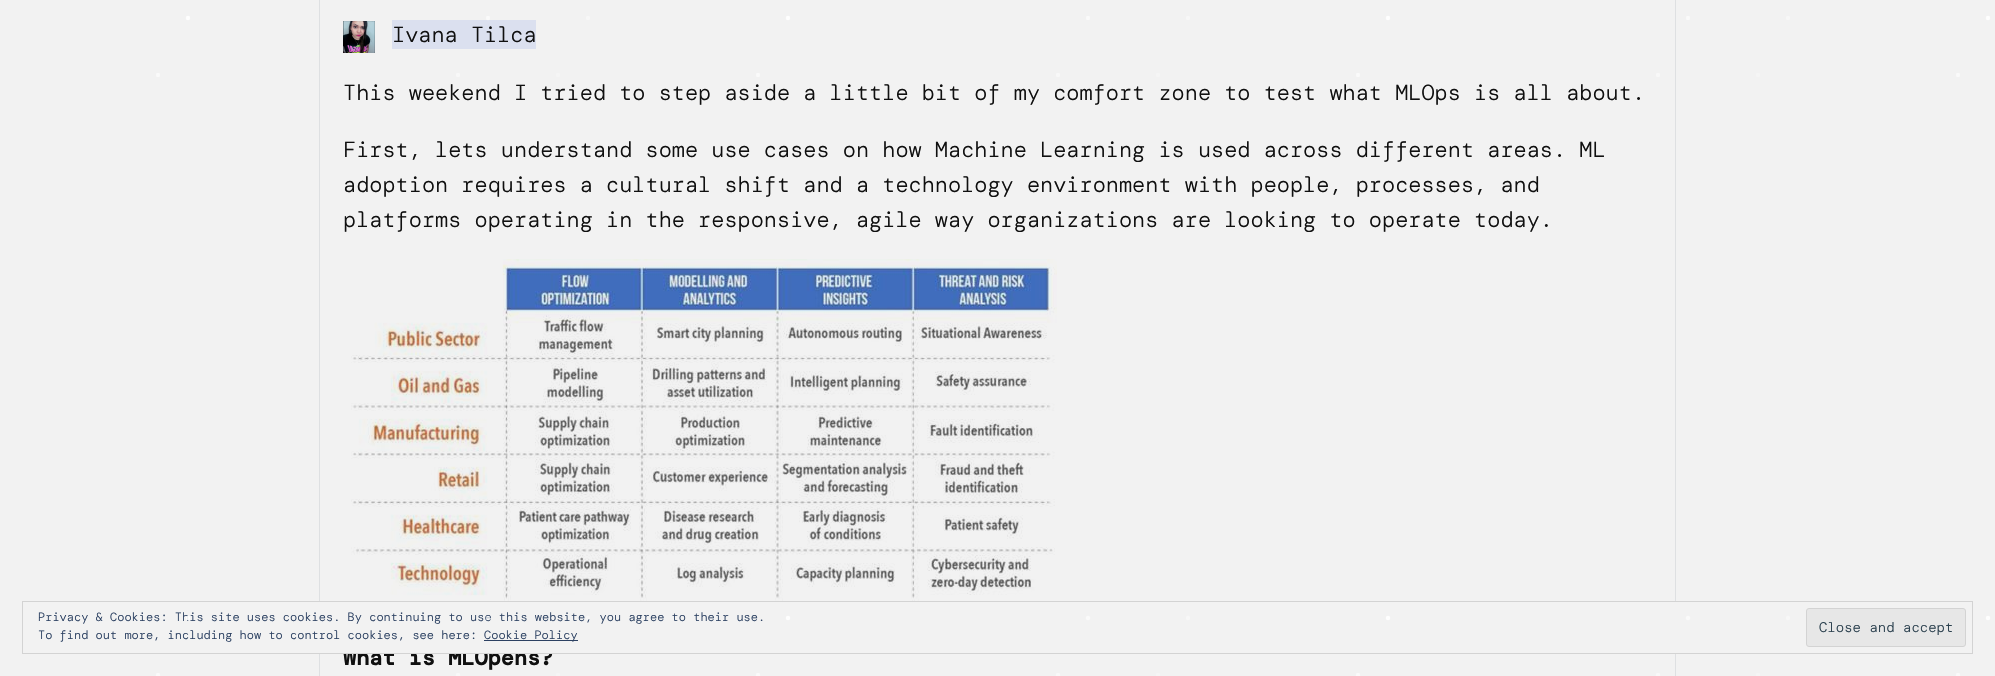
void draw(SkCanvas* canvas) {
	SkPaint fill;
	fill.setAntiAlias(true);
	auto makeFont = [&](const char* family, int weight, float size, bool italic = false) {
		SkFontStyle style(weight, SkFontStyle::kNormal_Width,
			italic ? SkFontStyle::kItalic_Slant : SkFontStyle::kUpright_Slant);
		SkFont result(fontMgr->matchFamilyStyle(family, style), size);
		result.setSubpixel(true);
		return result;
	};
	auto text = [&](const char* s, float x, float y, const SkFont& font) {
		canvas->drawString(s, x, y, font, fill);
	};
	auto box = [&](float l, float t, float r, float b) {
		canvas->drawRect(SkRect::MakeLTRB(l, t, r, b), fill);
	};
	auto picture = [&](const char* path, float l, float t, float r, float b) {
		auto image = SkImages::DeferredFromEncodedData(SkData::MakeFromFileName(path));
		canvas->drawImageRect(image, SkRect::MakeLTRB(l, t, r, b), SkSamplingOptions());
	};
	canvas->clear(0xFFF2F2F2);
	fill.setStyle(SkPaint::kStroke_Style);
	fill.setStrokeWidth(1);
	fill.setColor(0xFFDEE0E2);
	canvas->drawRect(SkRect::MakeLTRB(319.5f, -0.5f, 1675.5f, 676.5f), fill);
	fill.setStrokeWidth(4.5f);
	fill.setStrokeCap(SkPaint::kRound_Cap);
	fill.setColor(0xFFFAFAFA);
	fill.setPathEffect(SkDashPathEffect::Make({{0, 600}}, 0));
	canvas->drawPath(SkPathBuilder().moveTo(158, 75).lineTo(1958.2f, 75).detach(), fill);
	fill.setPathEffect(nullptr);
	fill.setPathEffect(SkDashPathEffect::Make({{0, 600}}, 0));
	canvas->drawPath(SkPathBuilder().moveTo(158, 675).lineTo(1958.2f, 675).detach(), fill);
	fill.setPathEffect(nullptr);
	fill.setStyle(SkPaint::kFill_Style);
	fill.setColor(0xFFDBE0EF);
	box(392, 20, 536, 49);
	fill.setStyle(SkPaint::kStroke_Style);
	fill.setColor(0xFFFEFEFE);
	fill.setPathEffect(SkDashPathEffect::Make({{0, 600}}, 0));
	canvas->drawPath(SkPathBuilder().moveTo(188, 18).lineTo(1988.2f, 18).detach(), fill);
	fill.setPathEffect(nullptr);
	fill.setColor(0xFFF8F8F8);
	fill.setPathEffect(SkDashPathEffect::Make({{0, 600}}, 0));
	canvas->drawPath(SkPathBuilder().moveTo(-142, 75).lineTo(1658.2f, 75).detach(), fill);
	fill.setPathEffect(nullptr);
	fill.setPathEffect(SkDashPathEffect::Make({{0, 600}}, 0));
	canvas->drawPath(SkPathBuilder().moveTo(-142, 675).lineTo(1658.2f, 675).detach(), fill);
	fill.setPathEffect(nullptr);
	fill.setColor(0xFFFAFAFA);
	fill.setPathEffect(SkDashPathEffect::Make({{0, 600}}, 0));
	canvas->drawPath(SkPathBuilder().moveTo(-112, 18).lineTo(1688.2f, 18).detach(), fill);
	fill.setPathEffect(nullptr);
	fill.setColor(0xFFF5F5F5);
	fill.setPathEffect(SkDashPathEffect::Make({{0, 600}}, 0));
	canvas->drawPath(SkPathBuilder().moveTo(-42, 75).lineTo(1758.2f, 75).detach(), fill);
	fill.setPathEffect(nullptr);
	fill.setPathEffect(SkDashPathEffect::Make({{0, 600}}, 0));
	canvas->drawPath(SkPathBuilder().moveTo(-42, 675).lineTo(1758.2f, 675).detach(), fill);
	fill.setPathEffect(nullptr);
	fill.setColor(0xFFF7F7F7);
	fill.setPathEffect(SkDashPathEffect::Make({{0, 600}}, 0));
	canvas->drawPath(SkPathBuilder().moveTo(-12, 18).lineTo(1788.2f, 18).detach(), fill);
	fill.setPathEffect(nullptr);
	picture("image0.png", 343, 21, 375, 53);
	picture("image1.png", 343, 259, 1057, 601);
	auto font1 = makeFont("DM Mono", 300, 21.92f);
	fill.setStyle(SkPaint::kFill_Style);
	fill.setColor(0xFF101010);
	text("Ivana Tilca", 392, 42, font1);
	text("This weekend I tried to step aside a little bit of my comfort zone to test what MLOps is all about.", 343, 100, font1);
	text("First, lets understand some use cases on how Machine Learning is used across different areas. ML", 343, 157, font1);
	text("adoption requires a cultural shift and a technology environment with people, processes, and", 343, 192, font1);
	text("platforms operating in the responsive, agile way organizations are looking to operate today.", 343, 227, font1);
	auto font2 = makeFont("DM Mono", 700, 21.92f);
	text("What is MLOpens?", 343, 665, font2);
	fill.setColor(0xFFF2F2F2);
	box(319, 602, 1676, 653);
	fill.setStyle(SkPaint::kStroke_Style);
	fill.setStrokeWidth(1);
	fill.setStrokeCap(SkPaint::kButt_Cap);
	fill.setColor(0xFFD3D3D3);
	canvas->drawRect(SkRect::MakeLTRB(22.5f, 601.5f, 1972.5f, 653.5f), fill);
	auto font3 = makeFont("DM Mono", 300, 12);
	fill.setStyle(SkPaint::kFill_Style);
	fill.setColor(0xFF2C4162);
	text("Privacy & Cookies: This site uses cookies. By continuing to use this website, you agree to their use.", 38, 621, font3);
	text("To find out more, including how to control cookies, see here:", 38, 639, font3);
	box(484, 640, 578, 641);
	text("Cookie Policy", 484, 639, font3);
	fill.setColor(0xFFE7E7E7);
	canvas->drawRoundRect(SkRect::MakeLTRB(1806.5f, 608.5f, 1965.5f, 646.5f), 2.5f, 2.5f, fill);
	fill.setStyle(SkPaint::kStroke_Style);
	fill.setColor(0xFFD3D3D3);
	canvas->drawRoundRect(SkRect::MakeLTRB(1806.5f, 608.5f, 1965.5f, 646.5f), 2.5f, 2.5f, fill);
	fill.setStrokeWidth(4.5f);
	fill.setStrokeCap(SkPaint::kRound_Cap);
	fill.setColor(0xE6FFFFFF);
	fill.setPathEffect(SkDashPathEffect::Make({{0, 600}}, 0));
	canvas->drawPath(SkPathBuilder().moveTo(188, 618).lineTo(1988.2f, 618).detach(), fill);
	fill.setPathEffect(nullptr);
	fill.setColor(0x96FFFFFF);
	fill.setPathEffect(SkDashPathEffect::Make({{0, 600}}, 0));
	canvas->drawPath(SkPathBuilder().moveTo(-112, 618).lineTo(1688.2f, 618).detach(), fill);
	fill.setPathEffect(nullptr);
	fill.setColor(0x5CFFFFFF);
	fill.setPathEffect(SkDashPathEffect::Make({{0, 600}}, 0));
	canvas->drawPath(SkPathBuilder().moveTo(-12, 618).lineTo(1788.2f, 618).detach(), fill);
	fill.setPathEffect(nullptr);
	auto font4 = makeFont("DM Mono", 300, 14);
	fill.setStyle(SkPaint::kFill_Style);
	fill.setColor(0xFF2C414F);
	text("Close and accept", 1819, 632, font4);
}
